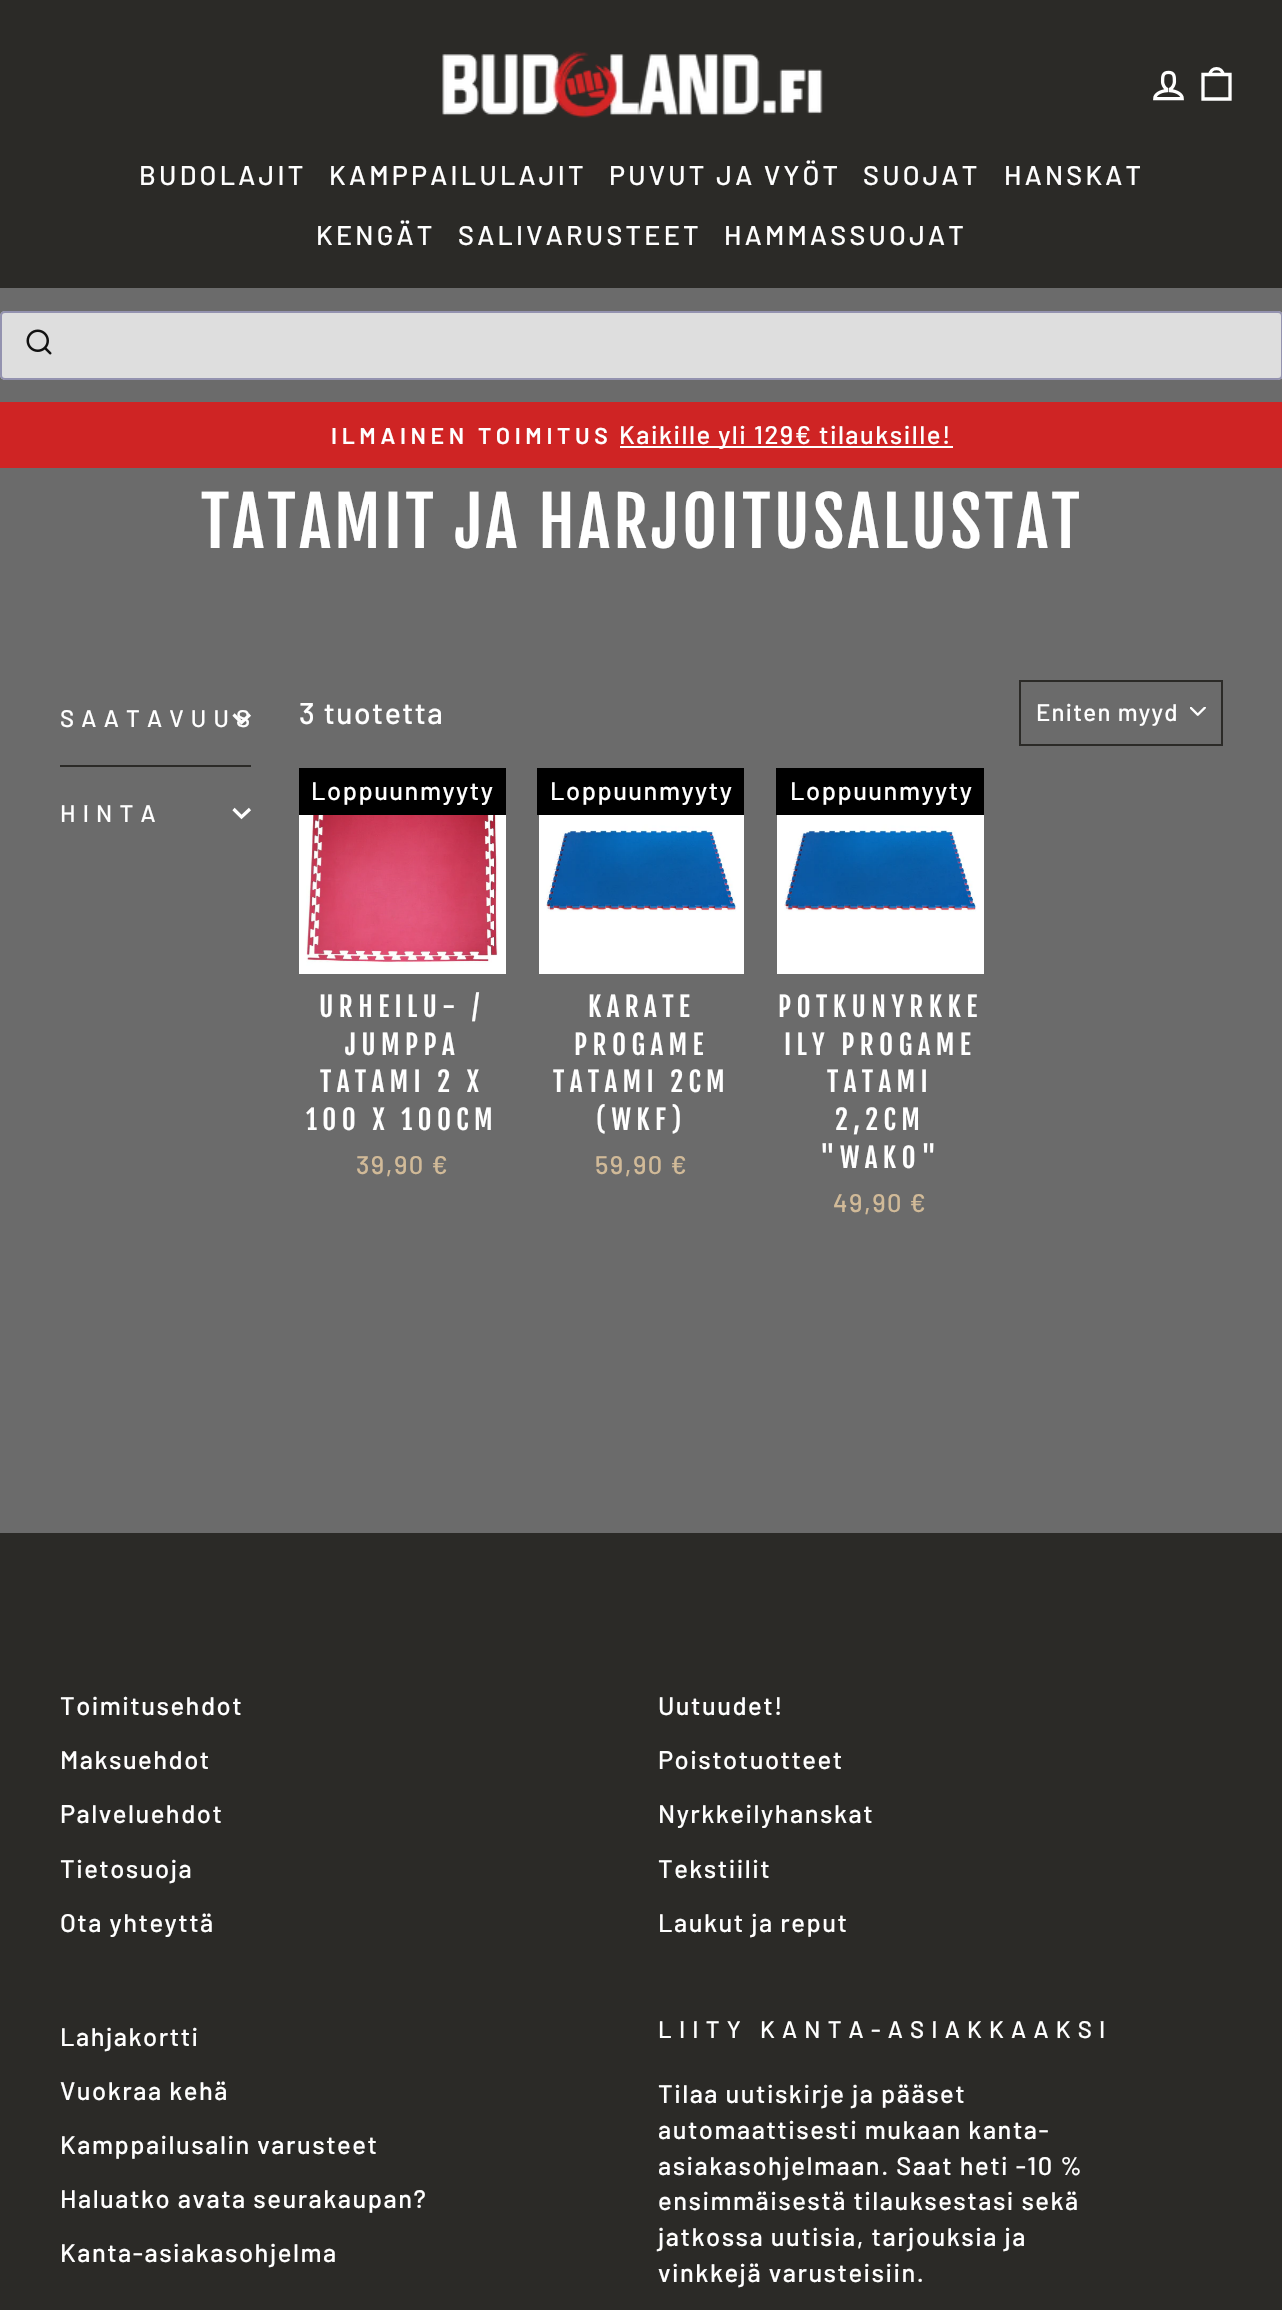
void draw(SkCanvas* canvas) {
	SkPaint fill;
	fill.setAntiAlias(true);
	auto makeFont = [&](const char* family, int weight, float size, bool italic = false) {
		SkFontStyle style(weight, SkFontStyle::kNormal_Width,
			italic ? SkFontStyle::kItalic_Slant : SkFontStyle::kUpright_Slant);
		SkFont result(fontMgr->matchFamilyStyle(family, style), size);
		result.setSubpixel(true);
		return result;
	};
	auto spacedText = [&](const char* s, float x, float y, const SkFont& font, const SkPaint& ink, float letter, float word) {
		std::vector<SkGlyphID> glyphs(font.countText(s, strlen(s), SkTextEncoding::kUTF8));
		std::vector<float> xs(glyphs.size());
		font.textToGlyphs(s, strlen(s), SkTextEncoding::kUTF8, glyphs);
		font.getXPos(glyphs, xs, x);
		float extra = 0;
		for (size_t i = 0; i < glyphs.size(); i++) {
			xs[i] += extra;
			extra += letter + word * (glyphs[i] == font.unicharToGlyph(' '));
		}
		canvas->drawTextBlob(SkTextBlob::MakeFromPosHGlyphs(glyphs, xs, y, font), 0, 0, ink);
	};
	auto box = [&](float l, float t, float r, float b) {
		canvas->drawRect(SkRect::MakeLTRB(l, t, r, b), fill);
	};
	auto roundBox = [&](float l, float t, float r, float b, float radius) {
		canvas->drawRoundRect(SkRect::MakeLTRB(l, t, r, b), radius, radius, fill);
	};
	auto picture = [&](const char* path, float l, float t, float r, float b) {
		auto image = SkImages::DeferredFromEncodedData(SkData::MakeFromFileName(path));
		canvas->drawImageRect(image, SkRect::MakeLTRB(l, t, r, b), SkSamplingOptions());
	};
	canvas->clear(0xFF6B6B6B);
	fill.setColor(0xFF2B2A27);
	box(0, 0, 1282, 288);
	picture("image0.png", 442, 51, 823, 118);
	picture("image1.png", 1153, 70, 1184, 101);
	fill.setStyle(SkPaint::kStroke_Style);
	fill.setStrokeWidth(3.3f);
	fill.setColor(0xFFFFFFFF);
	canvas->drawPath(SkPathBuilder().moveTo(1203, 74.5f).lineTo(1230, 74.5f).lineTo(1230, 99).lineTo(1203, 99).close().moveTo(1210, 75).cubicTo(1210, 66.5f, 1223, 66.5f, 1223, 75).detach(), fill);
	fill.setStyle(SkPaint::kFill_Style);
	fill.setColor(0xFFDEDEDE);
	roundBox(0, 311, 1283, 380, 5);
	fill.setStyle(SkPaint::kStroke_Style);
	fill.setStrokeWidth(2);
	fill.setColor(0xCC807EA3);
	canvas->drawRoundRect(SkRect::MakeLTRB(1, 312, 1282, 379), 4, 4, fill);
	picture("image2.png", 26, 329, 52, 355);
	fill.setStyle(SkPaint::kFill_Style);
	fill.setColor(0xFFCF2424);
	box(0, 402, 1282, 468);
	fill.setColor(0xFFFFFFFF);
	box(620, 446, 953, 448);
	fill.setStyle(SkPaint::kStroke_Style);
	fill.setStrokeWidth(3.2f);
	canvas->drawPath(SkPathBuilder().moveTo(233.5f, 714.5f).lineTo(241.5f, 722.5f).lineTo(250, 714.5f).detach(), fill);
	fill.setStyle(SkPaint::kFill_Style);
	fill.setColor(0xFF2B2A27);
	box(60, 765, 251, 767);
	fill.setStyle(SkPaint::kStroke_Style);
	fill.setColor(0xFFFFFFFF);
	canvas->drawPath(SkPathBuilder().moveTo(233.5f, 809).lineTo(241.5f, 817).lineTo(250, 809).detach(), fill);
	picture("image3.png", 1190, 707, 1206, 716);
	fill.setStrokeWidth(2);
	fill.setColor(0xFF2B2A27);
	canvas->drawRect(SkRect::MakeLTRB(1020, 681, 1222, 745), fill);
	fill.setStrokeWidth(8);
	fill.setColor(0xFFFFFFFF);
	canvas->drawRect(SkRect::MakeLTRB(303, 772, 502, 970), fill);
	fill.setStyle(SkPaint::kFill_Style);
	fill.setColor(0xFF000000);
	box(299, 768, 506, 815);
	picture("image4.png", 306, 815, 498, 966);
	fill.setStyle(SkPaint::kStroke_Style);
	fill.setColor(0xFFFFFFFF);
	canvas->drawRect(SkRect::MakeLTRB(543, 772, 740, 970), fill);
	fill.setStyle(SkPaint::kFill_Style);
	fill.setColor(0xFF000000);
	box(537, 768, 744, 815);
	picture("image5.png", 546, 815, 737, 966);
	fill.setStyle(SkPaint::kStroke_Style);
	fill.setColor(0xFFFFFFFF);
	canvas->drawRect(SkRect::MakeLTRB(781, 772, 980, 970), fill);
	fill.setStyle(SkPaint::kFill_Style);
	fill.setColor(0xFF000000);
	box(776, 768, 984, 815);
	picture("image6.png", 784, 815, 977, 966);
	fill.setColor(0xFF2B2A27);
	box(0, 1533, 1282, 2310);
	auto font1 = makeFont("Barlow", 500, 27);
	fill.setColor(0xFFFFFFFF);
	spacedText("BUDOLAJIT", 139, 185, font1, fill, 3.25f, 0);
	spacedText("KAMPPAILULAJIT", 329, 185, font1, fill, 3.25f, 0);
	spacedText("PUVUT JA VYÖT", 609, 185, font1, fill, 3.25f, 0);
	spacedText("SUOJAT", 863, 185, font1, fill, 3.25f, 0);
	spacedText("HANSKAT", 1004, 185, font1, fill, 3.25f, 0);
	spacedText("KENGÄT", 316, 245, font1, fill, 3.25f, 0);
	spacedText("SALIVARUSTEET", 458, 245, font1, fill, 3.25f, 0);
	spacedText("HAMMASSUOJAT", 724, 245, font1, fill, 3.25f, 0);
	auto font2 = makeFont("Barlow", 600, 23);
	spacedText("ILMAINEN TOIMITUS", 331, 444, font2, fill, 4.6f, 0);
	auto font3 = makeFont("Barlow", 500, 25.5f);
	spacedText("Kaikille yli 129€ tilauksille!", 619, 444, font3, fill, 1.5f, 0);
	auto font4 = makeFont("Fjalla One", 400, 67.5f);
	spacedText("TATAMIT JA HARJOITUSALUSTAT", 201, 548, font4, fill, 3.4f, 0);
	auto font5 = makeFont("Barlow", 500, 24);
	spacedText("SAATAVUUS", 60, 727, font5, fill, 7.2f, 0);
	spacedText("HINTA", 60, 822, font5, fill, 7.2f, 0);
	auto font6 = makeFont("Barlow", 500, 30);
	spacedText("3 tuotetta", 299, 724, font6, fill, 1.5f, 0);
	spacedText("Eniten myyd", 1036, 721, font5, fill, 1.25f, 0);
	spacedText("Loppuunmyyty", 311, 800, font3, fill, 1.5f, 0);
	auto font7 = makeFont("Fjalla One", 400, 27);
	spacedText("URHEILU- /", 319, 1017, font7, fill, 5.4f, 0);
	spacedText("JUMPPA", 345, 1055, font7, fill, 5.4f, 0);
	spacedText("TATAMI 2 X", 320, 1092, font7, fill, 5.4f, 0);
	spacedText("100 X 100CM", 306, 1130, font7, fill, 5.4f, 0);
	fill.setColor(0xFFD1BA98);
	spacedText("39,90 €", 356, 1174, font3, fill, 1.5f, 0);
	fill.setColor(0xFFFFFFFF);
	spacedText("Loppuunmyyty", 550, 800, font3, fill, 1.5f, 0);
	spacedText("KARATE", 588, 1017, font7, fill, 5.4f, 0);
	spacedText("PROGAME", 574, 1055, font7, fill, 5.4f, 0);
	spacedText("TATAMI 2CM", 553, 1092, font7, fill, 5.4f, 0);
	spacedText("(WKF)", 596, 1130, font7, fill, 5.4f, 0);
	fill.setColor(0xFFD1BA98);
	spacedText("59,90 €", 595, 1174, font3, fill, 1.5f, 0);
	fill.setColor(0xFFFFFFFF);
	spacedText("Loppuunmyyty", 790, 800, font3, fill, 1.5f, 0);
	spacedText("POTKUNYRKKE", 778, 1017, font7, fill, 5.4f, 0);
	spacedText("ILY PROGAME", 784, 1055, font7, fill, 5.4f, 0);
	spacedText("TATAMI", 827, 1092, font7, fill, 5.4f, 0);
	spacedText("2,2CM", 835, 1130, font7, fill, 5.4f, 0);
	spacedText("\"WAKO\"", 820, 1168, font7, fill, 5.4f, 0);
	fill.setColor(0xFFD1BA98);
	spacedText("49,90 €", 833, 1212, font3, fill, 1.5f, 0);
	fill.setColor(0xFFFFFFFF);
	spacedText("Toimitusehdot", 60, 1715, font3, fill, 1.5f, 0);
	spacedText("Maksuehdot", 60, 1769, font3, fill, 1.5f, 0);
	spacedText("Palveluehdot", 60, 1823, font3, fill, 1.5f, 0);
	spacedText("Tietosuoja", 60, 1878, font3, fill, 1.5f, 0);
	spacedText("Ota yhteyttä", 60, 1932, font3, fill, 1.5f, 0);
	spacedText("Uutuudet!", 658, 1715, font3, fill, 1.5f, 0);
	spacedText("Poistotuotteet", 658, 1769, font3, fill, 1.5f, 0);
	spacedText("Nyrkkeilyhanskat", 658, 1823, font3, fill, 1.5f, 0);
	spacedText("Tekstiilit", 658, 1878, font3, fill, 1.5f, 0);
	spacedText("Laukut ja reput", 658, 1932, font3, fill, 1.5f, 0);
	spacedText("Lahjakortti", 60, 2046, font3, fill, 1.5f, 0);
	spacedText("Vuokraa kehä", 60, 2100, font3, fill, 1.5f, 0);
	spacedText("Kamppailusalin varusteet", 60, 2154, font3, fill, 1.5f, 0);
	spacedText("Haluatko avata seurakaupan?", 60, 2208, font3, fill, 1.5f, 0);
	spacedText("Kanta-asiakasohjelma", 60, 2262, font3, fill, 1.5f, 0);
	spacedText("LIITY KANTA-ASIAKKAAKSI", 658, 2038, font5, fill, 7.2f, 0);
	spacedText("Tilaa uutiskirje ja pääset", 658, 2103, font3, fill, 1.5f, 0);
	spacedText("automaattisesti mukaan kanta-", 658, 2139, font3, fill, 1.5f, 0);
	spacedText("asiakasohjelmaan. Saat heti -10 %", 658, 2175, font3, fill, 1.5f, 0);
	spacedText("ensimmäisestä tilauksestasi sekä", 658, 2210, font3, fill, 1.5f, 0);
	spacedText("jatkossa uutisia, tarjouksia ja", 658, 2246, font3, fill, 1.5f, 0);
	spacedText("vinkkejä varusteisiin.", 658, 2282, font3, fill, 1.5f, 0);
}
